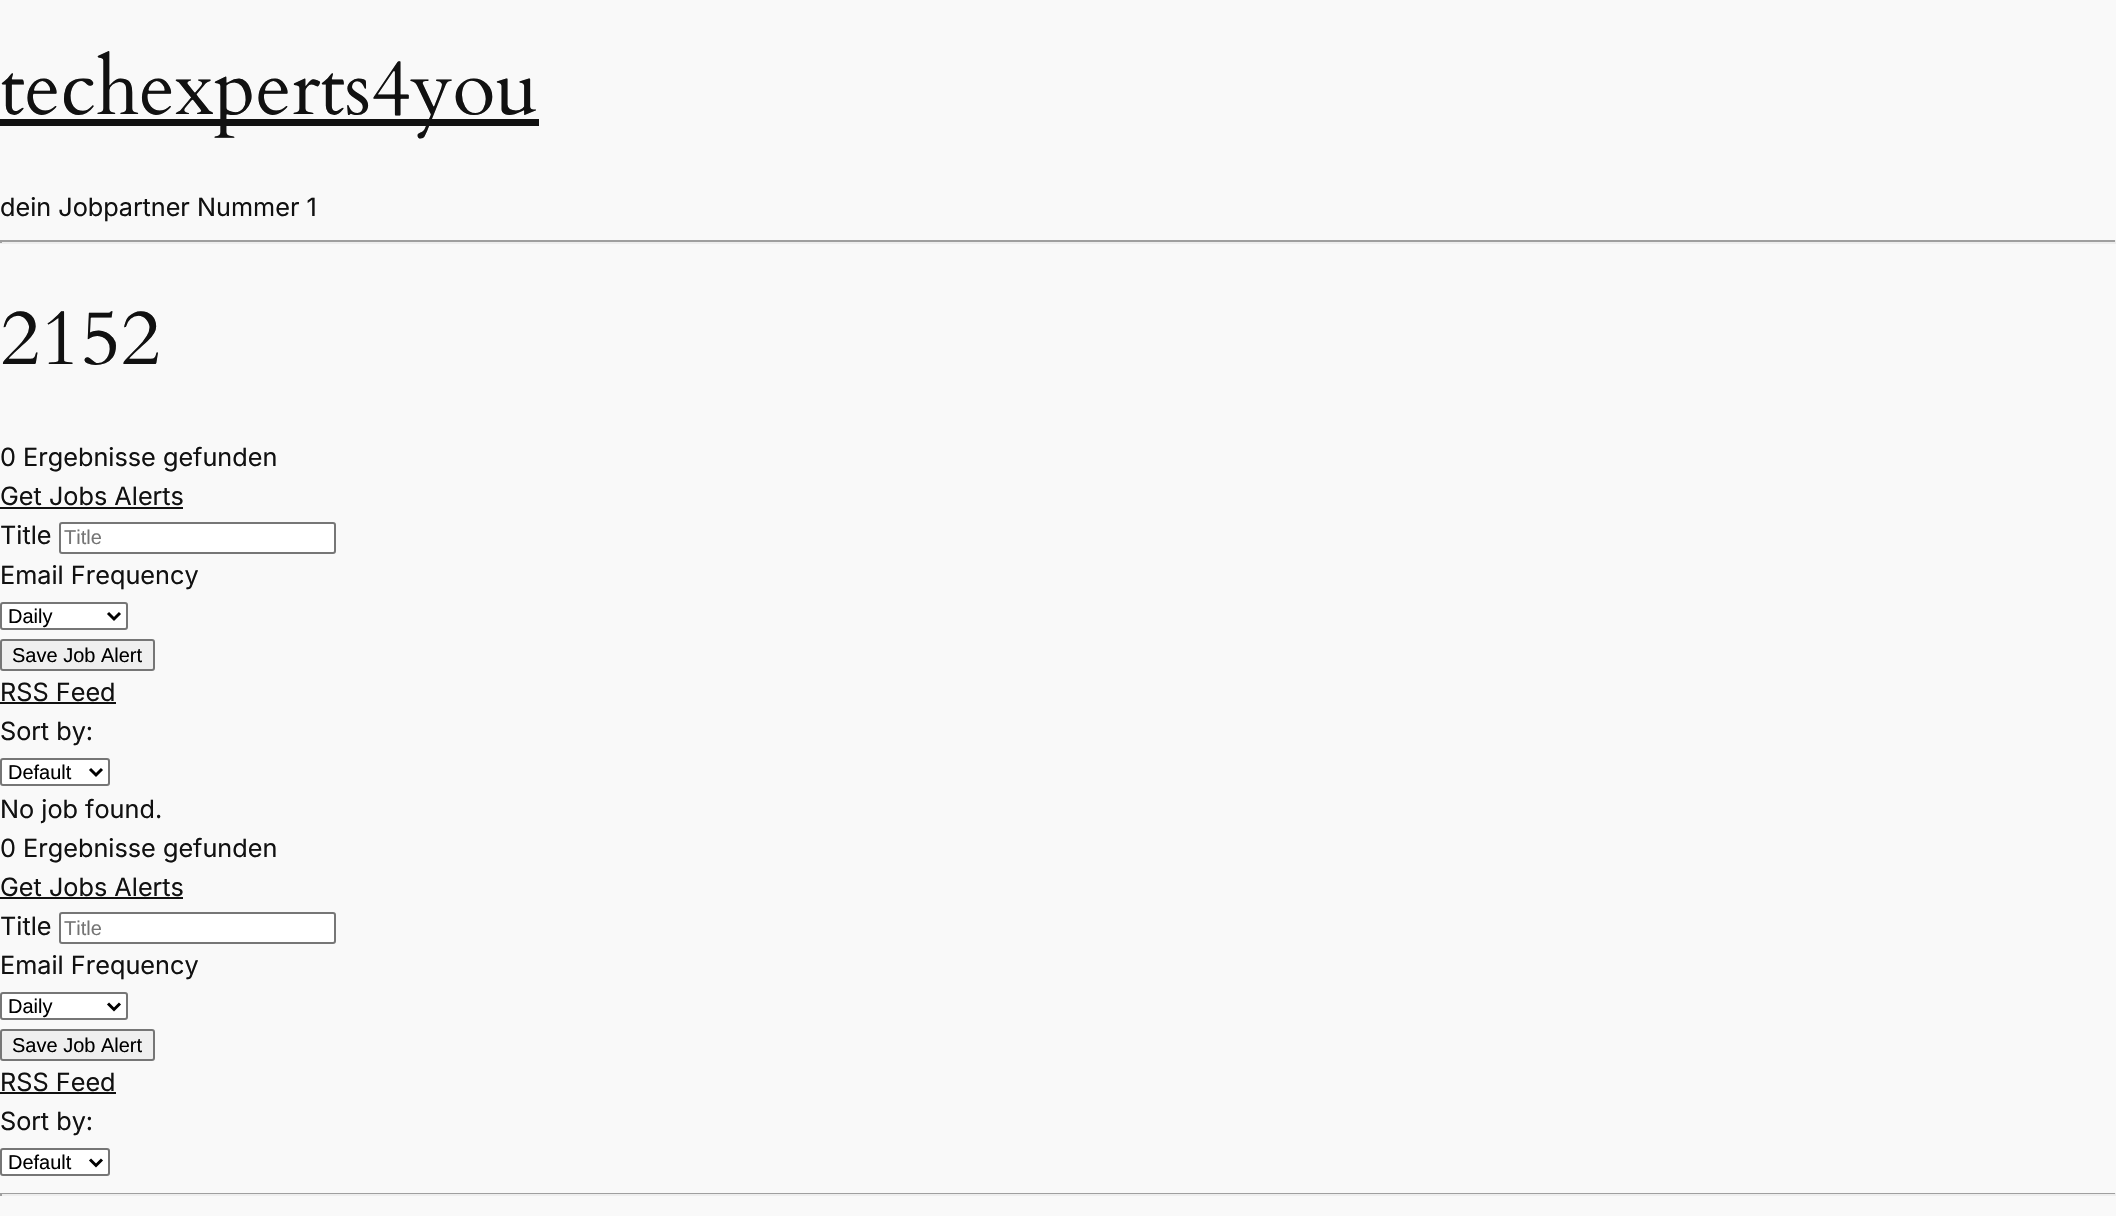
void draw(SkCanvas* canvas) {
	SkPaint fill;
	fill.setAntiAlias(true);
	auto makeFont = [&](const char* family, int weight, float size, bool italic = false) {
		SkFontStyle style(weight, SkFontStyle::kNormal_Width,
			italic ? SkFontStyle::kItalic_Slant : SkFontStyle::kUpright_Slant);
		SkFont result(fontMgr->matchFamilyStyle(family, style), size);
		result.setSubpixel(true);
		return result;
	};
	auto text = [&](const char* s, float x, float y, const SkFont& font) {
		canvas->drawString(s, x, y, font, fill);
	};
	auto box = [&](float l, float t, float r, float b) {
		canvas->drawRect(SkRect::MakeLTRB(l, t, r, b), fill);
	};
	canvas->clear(0xFFF9F9F9);
	fill.setColor(0xFF111111);
	box(0, 119, 539, 126);
	fill.setColor(0xFF9F9F9F);
	box(0, 240, 2116, 242);
	fill.setColor(0xFFEEEEEE);
	box(2115, 240, 2116, 243);
	box(0, 242, 2116, 244);
	fill.setColor(0xFF9F9F9F);
	box(0, 240, 2, 243);
	fill.setColor(0xFF111111);
	box(0, 507, 183, 509);
	fill.setColor(0xFFFFFFFF);
	canvas->drawRoundRect(SkRect::MakeLTRB(60, 523, 335, 553), 2, 2, fill);
	fill.setStyle(SkPaint::kStroke_Style);
	fill.setStrokeWidth(2);
	fill.setColor(0xFF767676);
	canvas->drawRoundRect(SkRect::MakeLTRB(60, 523, 335, 553), 2, 2, fill);
	fill.setStyle(SkPaint::kFill_Style);
	fill.setColor(0xFFFFFFFF);
	canvas->drawRoundRect(SkRect::MakeLTRB(1, 603, 127, 629), 2, 2, fill);
	fill.setStyle(SkPaint::kStroke_Style);
	fill.setColor(0xFF767676);
	canvas->drawRoundRect(SkRect::MakeLTRB(1, 603, 127, 629), 2, 2, fill);
	fill.setStrokeWidth(3);
	fill.setColor(0xFF000000);
	canvas->drawPath(SkPathBuilder().moveTo(108, 613).lineTo(114, 619).lineTo(120, 613).detach(), fill);
	fill.setStyle(SkPaint::kFill_Style);
	fill.setColor(0xFFEFEFEF);
	canvas->drawRoundRect(SkRect::MakeLTRB(1, 640, 154, 670), 2, 2, fill);
	fill.setStyle(SkPaint::kStroke_Style);
	fill.setStrokeWidth(2);
	fill.setColor(0xFF767676);
	canvas->drawRoundRect(SkRect::MakeLTRB(1, 640, 154, 670), 2, 2, fill);
	fill.setStyle(SkPaint::kFill_Style);
	fill.setColor(0xFF111111);
	box(0, 702, 116, 704);
	fill.setColor(0xFFFFFFFF);
	canvas->drawRoundRect(SkRect::MakeLTRB(1, 759, 109, 785), 2, 2, fill);
	fill.setStyle(SkPaint::kStroke_Style);
	fill.setColor(0xFF767676);
	canvas->drawRoundRect(SkRect::MakeLTRB(1, 759, 109, 785), 2, 2, fill);
	fill.setStrokeWidth(3);
	fill.setColor(0xFF000000);
	canvas->drawPath(SkPathBuilder().moveTo(90, 769).lineTo(96, 775).lineTo(102, 769).detach(), fill);
	fill.setStyle(SkPaint::kFill_Style);
	fill.setColor(0xFF111111);
	box(0, 897, 183, 899);
	fill.setColor(0xFFFFFFFF);
	canvas->drawRoundRect(SkRect::MakeLTRB(60, 913, 335, 943), 2, 2, fill);
	fill.setStyle(SkPaint::kStroke_Style);
	fill.setStrokeWidth(2);
	fill.setColor(0xFF767676);
	canvas->drawRoundRect(SkRect::MakeLTRB(60, 913, 335, 943), 2, 2, fill);
	fill.setStyle(SkPaint::kFill_Style);
	fill.setColor(0xFFFFFFFF);
	canvas->drawRoundRect(SkRect::MakeLTRB(1, 993, 127, 1019), 2, 2, fill);
	fill.setStyle(SkPaint::kStroke_Style);
	fill.setColor(0xFF767676);
	canvas->drawRoundRect(SkRect::MakeLTRB(1, 993, 127, 1019), 2, 2, fill);
	fill.setStrokeWidth(3);
	fill.setColor(0xFF000000);
	canvas->drawPath(SkPathBuilder().moveTo(108, 1003.5f).lineTo(114, 1009.5f).lineTo(120, 1003.5f).detach(), fill);
	fill.setStyle(SkPaint::kFill_Style);
	fill.setColor(0xFFEFEFEF);
	canvas->drawRoundRect(SkRect::MakeLTRB(1, 1030, 154, 1060), 2, 2, fill);
	fill.setStyle(SkPaint::kStroke_Style);
	fill.setStrokeWidth(2);
	fill.setColor(0xFF767676);
	canvas->drawRoundRect(SkRect::MakeLTRB(1, 1030, 154, 1060), 2, 2, fill);
	fill.setStyle(SkPaint::kFill_Style);
	fill.setColor(0xFF111111);
	box(0, 1092, 116, 1094);
	fill.setColor(0xFFFFFFFF);
	canvas->drawRoundRect(SkRect::MakeLTRB(1, 1149, 109, 1175), 2, 2, fill);
	fill.setStyle(SkPaint::kStroke_Style);
	fill.setColor(0xFF767676);
	canvas->drawRoundRect(SkRect::MakeLTRB(1, 1149, 109, 1175), 2, 2, fill);
	fill.setStrokeWidth(3);
	fill.setColor(0xFF000000);
	canvas->drawPath(SkPathBuilder().moveTo(90, 1159.5f).lineTo(96, 1165.5f).lineTo(102, 1159.5f).detach(), fill);
	fill.setStyle(SkPaint::kFill_Style);
	fill.setColor(0xFF9F9F9F);
	box(0, 1193, 2116, 1194);
	fill.setColor(0xFFEEEEEE);
	box(2115, 1193, 2116, 1196);
	box(0, 1194, 2116, 1196);
	fill.setColor(0xFF9F9F9F);
	box(0, 1193, 2, 1196);
	auto font1 = makeFont("Cardo", 400, 78.5f);
	fill.setColor(0xFF111111);
	text("techexperts4you", 0, 114, font1);
	auto font2 = makeFont("Inter", 400, 25.25f);
	text("dein Jobpartner Nummer 1", 0, 216, font2);
	text("2152", 0, 364, font1);
	text("0 Ergebnisse gefunden", 0, 466, font2);
	text("Get Jobs Alerts", 0, 505, font2);
	text("Title", 0, 544, font2);
	auto font3 = makeFont("Liberation Sans", 400, 20);
	fill.setColor(0xFF757575);
	text("Title", 64, 544, font3);
	fill.setColor(0xFF111111);
	text("Email Frequency", 0, 584, font2);
	fill.setColor(0xFF000000);
	text("Daily", 8, 623, font3);
	text("Save Job Alert", 12, 662, font3);
	fill.setColor(0xFF111111);
	text("RSS Feed", 0, 701, font2);
	text("Sort by:", 0, 740, font2);
	fill.setColor(0xFF000000);
	text("Default", 8, 779, font3);
	fill.setColor(0xFF111111);
	text("No job found.", 0, 818, font2);
	text("0 Ergebnisse gefunden", 0, 857, font2);
	text("Get Jobs Alerts", 0, 896, font2);
	text("Title", 0, 935, font2);
	fill.setColor(0xFF757575);
	text("Title", 64, 935, font3);
	fill.setColor(0xFF111111);
	text("Email Frequency", 0, 974, font2);
	fill.setColor(0xFF000000);
	text("Daily", 8, 1013, font3);
	text("Save Job Alert", 12, 1052, font3);
	fill.setColor(0xFF111111);
	text("RSS Feed", 0, 1091, font2);
	text("Sort by:", 0, 1130, font2);
	fill.setColor(0xFF000000);
	text("Default", 8, 1169, font3);
}
